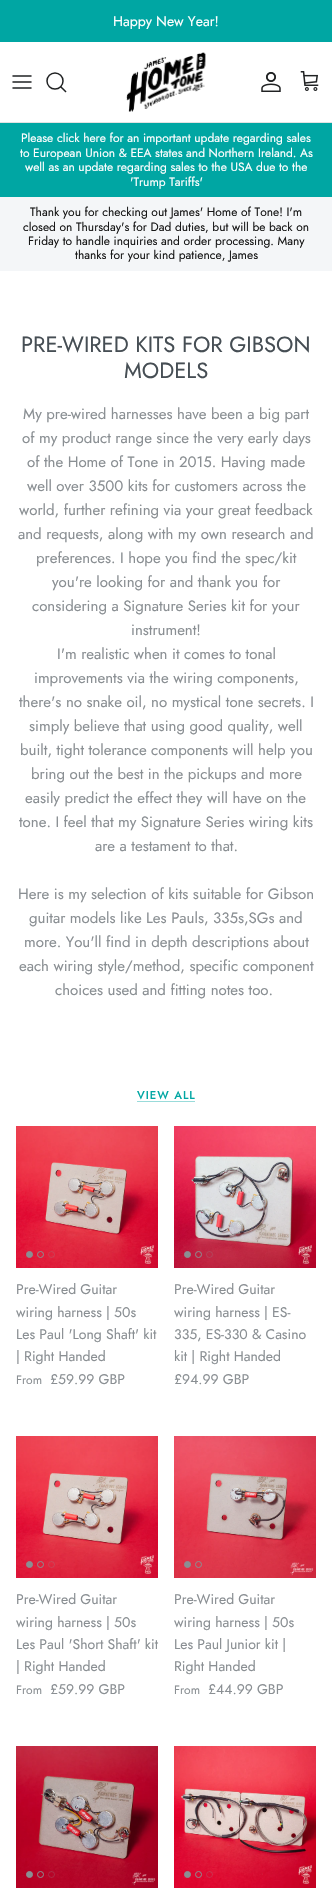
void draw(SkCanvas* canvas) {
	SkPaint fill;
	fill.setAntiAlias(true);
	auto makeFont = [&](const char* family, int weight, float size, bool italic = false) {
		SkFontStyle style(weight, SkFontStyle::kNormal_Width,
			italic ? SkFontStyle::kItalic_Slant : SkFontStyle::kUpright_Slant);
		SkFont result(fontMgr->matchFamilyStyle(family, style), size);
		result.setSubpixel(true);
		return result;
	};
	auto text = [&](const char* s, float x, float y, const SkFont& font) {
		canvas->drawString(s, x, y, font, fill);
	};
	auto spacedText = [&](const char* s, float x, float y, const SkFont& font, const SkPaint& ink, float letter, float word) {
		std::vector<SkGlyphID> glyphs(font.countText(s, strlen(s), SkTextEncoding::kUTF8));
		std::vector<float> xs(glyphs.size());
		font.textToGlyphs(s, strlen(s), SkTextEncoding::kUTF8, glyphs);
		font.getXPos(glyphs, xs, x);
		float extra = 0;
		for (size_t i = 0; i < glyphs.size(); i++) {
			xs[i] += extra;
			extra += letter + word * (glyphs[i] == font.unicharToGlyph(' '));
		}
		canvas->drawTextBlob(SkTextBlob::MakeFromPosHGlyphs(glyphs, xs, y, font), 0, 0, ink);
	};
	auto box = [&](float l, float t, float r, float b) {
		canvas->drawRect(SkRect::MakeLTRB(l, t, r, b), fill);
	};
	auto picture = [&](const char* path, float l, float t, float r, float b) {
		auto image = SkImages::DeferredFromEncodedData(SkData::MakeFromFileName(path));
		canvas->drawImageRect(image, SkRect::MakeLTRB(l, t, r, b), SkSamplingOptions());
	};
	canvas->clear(0xFFFFFFFF);
	fill.setColor(0xFF00A6A3);
	box(0, 0, 332, 42);
	fill.setColor(0xFFE2E2E2);
	box(0, 122, 332, 123);
	fill.setStyle(SkPaint::kStroke_Style);
	fill.setStrokeWidth(1.5f);
	fill.setStrokeCap(SkPaint::kRound_Cap);
	fill.setStrokeJoin(SkPaint::kRound_Join);
	fill.setColor(0xFF202223);
	canvas->drawPath(SkPathBuilder().moveTo(13, 82).lineTo(31, 82).moveTo(13, 76).lineTo(31, 76).moveTo(13, 88).lineTo(31, 88).detach(), fill);
	fill.setStrokeCap(SkPaint::kButt_Cap);
	fill.setStrokeJoin(SkPaint::kMiter_Join);
	canvas->drawCircle(55, 81, 8, fill);
	fill.setStrokeCap(SkPaint::kSquare_Cap);
	canvas->drawPath(SkPathBuilder().moveTo(61, 87).lineTo(65.5f, 91.5f).detach(), fill);
	picture("image0.png", 126, 52, 206, 112);
	picture("image1.png", 261, 72, 281, 92);
	picture("image2.png", 300, 71, 319, 91);
	fill.setStyle(SkPaint::kFill_Style);
	fill.setColor(0xFF00A6A3);
	box(0, 123, 332, 197);
	fill.setColor(0xFFF4F6F8);
	box(0, 197, 332, 271);
	fill.setColor(0xFF99DBDA);
	box(137, 1101, 195, 1102);
	picture("image3.png", 16, 1126, 158, 1268);
	fill.setColor(0xFF8A8F93);
	canvas->drawCircle(29.5f, 1254.5f, 3, fill);
	fill.setStyle(SkPaint::kStroke_Style);
	fill.setStrokeWidth(1);
	fill.setStrokeCap(SkPaint::kButt_Cap);
	canvas->drawCircle(29.5f, 1254.5f, 3, fill);
	canvas->drawCircle(40.5f, 1254.5f, 3, fill);
	fill.setColor(0x408A8F93);
	canvas->drawCircle(51.5f, 1254.5f, 3, fill);
	picture("image4.png", 174, 1126, 316, 1268);
	fill.setStyle(SkPaint::kFill_Style);
	fill.setColor(0xFF8A8F93);
	canvas->drawCircle(187.5f, 1254.5f, 3, fill);
	fill.setStyle(SkPaint::kStroke_Style);
	canvas->drawCircle(187.5f, 1254.5f, 3, fill);
	canvas->drawCircle(198.5f, 1254.5f, 3, fill);
	fill.setColor(0x408A8F93);
	canvas->drawCircle(209.5f, 1254.5f, 3, fill);
	picture("image5.png", 16, 1436, 158, 1578);
	fill.setStyle(SkPaint::kFill_Style);
	fill.setColor(0xFF8A8F93);
	canvas->drawCircle(29.5f, 1564.5f, 3, fill);
	fill.setStyle(SkPaint::kStroke_Style);
	canvas->drawCircle(29.5f, 1564.5f, 3, fill);
	canvas->drawCircle(40.5f, 1564.5f, 3, fill);
	fill.setColor(0x408A8F93);
	canvas->drawCircle(51.5f, 1564.5f, 3, fill);
	picture("image6.png", 174, 1436, 316, 1578);
	fill.setStyle(SkPaint::kFill_Style);
	fill.setColor(0xFF8A8F93);
	canvas->drawCircle(187.5f, 1564.5f, 3, fill);
	fill.setStyle(SkPaint::kStroke_Style);
	canvas->drawCircle(187.5f, 1564.5f, 3, fill);
	canvas->drawCircle(198.5f, 1564.5f, 3, fill);
	picture("image7.png", 16, 1746, 158, 1888);
	fill.setStyle(SkPaint::kFill_Style);
	canvas->drawCircle(29.5f, 1874.5f, 3, fill);
	fill.setStyle(SkPaint::kStroke_Style);
	canvas->drawCircle(29.5f, 1874.5f, 3, fill);
	canvas->drawCircle(40.5f, 1874.5f, 3, fill);
	fill.setColor(0x408A8F93);
	canvas->drawCircle(51.5f, 1874.5f, 3, fill);
	picture("image8.png", 174, 1746, 316, 1888);
	fill.setStyle(SkPaint::kFill_Style);
	fill.setColor(0xFF8A8F93);
	canvas->drawCircle(187.5f, 1874.5f, 3, fill);
	fill.setStyle(SkPaint::kStroke_Style);
	canvas->drawCircle(187.5f, 1874.5f, 3, fill);
	canvas->drawCircle(198.5f, 1874.5f, 3, fill);
	fill.setColor(0x408A8F93);
	canvas->drawCircle(209.5f, 1874.5f, 3, fill);
	auto font1 = makeFont("Jost", 400, 14);
	fill.setStyle(SkPaint::kFill_Style);
	fill.setColor(0xFFFFFFFF);
	text("Happy New Year!", 113, 26, font1);
	auto font2 = makeFont("Jost", 400, 12);
	text("Please click here for an important update regarding sales", 21, 142, font2);
	text("to European Union & EEA states and Northern Ireland. As", 20, 157, font2);
	text("well as an update regarding sales to the USA due to the", 25, 171, font2);
	text("'Trump Tariffs'", 130, 186, font2);
	fill.setColor(0xFF171717);
	text("Thank you for checking out James' Home of Tone! I'm", 30, 216, font2);
	text("closed on Thursday's for Dad duties, but will be back on", 23, 231, font2);
	text("Friday to handle inquiries and order processing. Many", 28, 245, font2);
	text("thanks for your kind patience, James", 75, 259, font2);
	auto font3 = makeFont("Jost", 400, 22);
	fill.setColor(0xFF464E54);
	text("PRE-WIRED KITS FOR GIBSON", 21, 352, font3);
	text("MODELS", 124, 378, font3);
	auto font4 = makeFont("Jost", 400, 15);
	fill.setColor(0xFF8A8F93);
	text("My pre-wired harnesses have been a big part", 23, 419, font4);
	text("of my product range since the very early days", 22, 443, font4);
	text("of the Home of Tone in 2015. Having made", 27, 467, font4);
	text("well over 3500 kits for customers across the", 27, 491, font4);
	text("world, further refining via your great feedback", 19, 515, font4);
	text("and requests, along with my own research and", 18, 539, font4);
	text("preferences. I hope you find the spec/kit", 36, 563, font4);
	text("you're looking for and thank you for", 52, 587, font4);
	text("considering a Signature Series kit for your", 32, 611, font4);
	text("instrument!", 131, 635, font4);
	text("I'm realistic when it comes to tonal", 57, 659, font4);
	text("improvements via the wiring components,", 34, 683, font4);
	text("there's no snake oil, no mystical tone secrets. I", 19, 707, font4);
	text("simply believe that using good quality, well", 29, 731, font4);
	text("built, tight tolerance components will help you", 20, 755, font4);
	text("bring out the best in the pickups and more", 31, 779, font4);
	text("easily predict the effect they will have on the", 25, 803, font4);
	text("tone. I feel that my Signature Series wiring kits", 19, 827, font4);
	text("are a testament to that.", 95, 851, font4);
	text("Here is my selection of kits suitable for Gibson", 18, 899, font4);
	text("guitar models like Les Pauls, 335s,SGs and", 29, 923, font4);
	text("more. You'll find in depth descriptions about", 24, 947, font4);
	text("each wiring style/method, specific component", 19, 971, font4);
	text("choices used and fitting notes too.", 55, 995, font4);
	auto font5 = makeFont("Jost", 500, 11.25f);
	fill.setColor(0xFF00A6A3);
	spacedText("VIEW ALL", 137, 1099, font5, fill, 1, 0);
	fill.setColor(0xFF8A8F93);
	text("Pre-Wired Guitar", 16, 1294, font1);
	text("wiring harness | 50s", 16, 1317, font1);
	text("Les Paul 'Long Shaft' kit", 16, 1339, font1);
	text("| Right Handed", 16, 1361, font1);
	text("From", 16, 1384, font2);
	text("£59.99 GBP", 50, 1384, font1);
	text("Pre-Wired Guitar", 174, 1294, font1);
	text("wiring harness | ES-", 174, 1317, font1);
	text("335, ES-330 & Casino", 174, 1339, font1);
	text("kit | Right Handed", 174, 1361, font1);
	text("£94.99 GBP", 174, 1384, font1);
	text("Pre-Wired Guitar", 16, 1604, font1);
	text("wiring harness | 50s", 16, 1627, font1);
	text("Les Paul 'Short Shaft' kit", 16, 1649, font1);
	text("| Right Handed", 16, 1671, font1);
	text("From", 16, 1694, font2);
	text("£59.99 GBP", 50, 1694, font1);
	text("Pre-Wired Guitar", 174, 1604, font1);
	text("wiring harness | 50s", 174, 1627, font1);
	text("Les Paul Junior kit |", 174, 1649, font1);
	text("Right Handed", 174, 1671, font1);
	text("From", 174, 1694, font2);
	text("£44.99 GBP", 208, 1694, font1);
}
